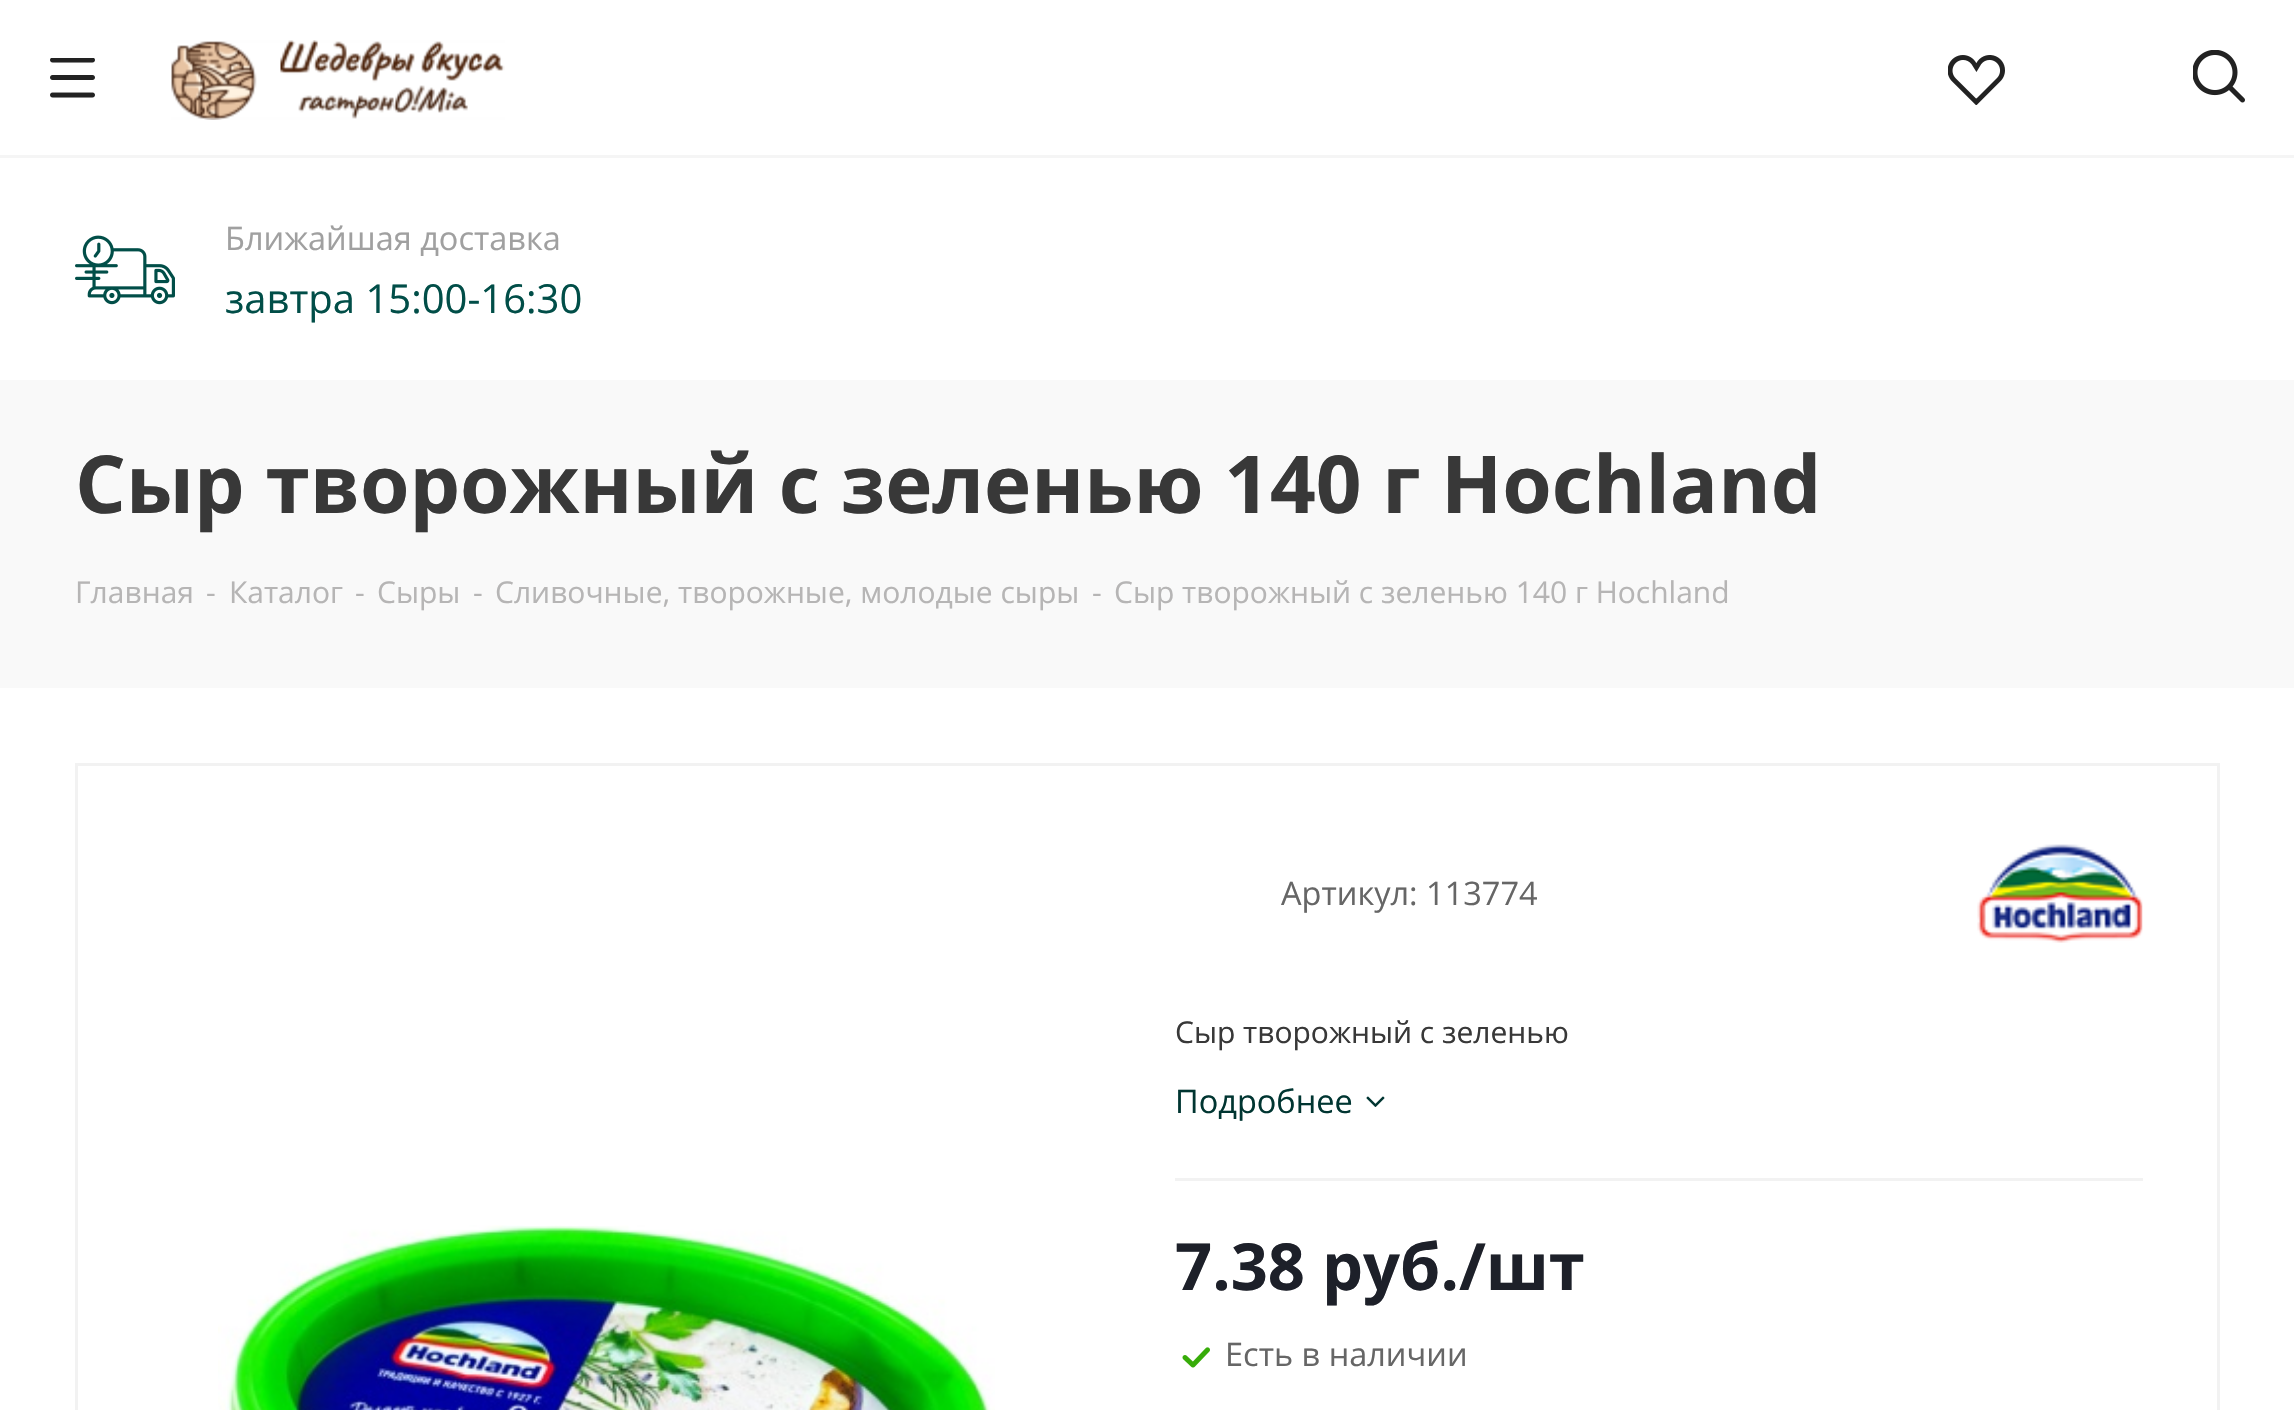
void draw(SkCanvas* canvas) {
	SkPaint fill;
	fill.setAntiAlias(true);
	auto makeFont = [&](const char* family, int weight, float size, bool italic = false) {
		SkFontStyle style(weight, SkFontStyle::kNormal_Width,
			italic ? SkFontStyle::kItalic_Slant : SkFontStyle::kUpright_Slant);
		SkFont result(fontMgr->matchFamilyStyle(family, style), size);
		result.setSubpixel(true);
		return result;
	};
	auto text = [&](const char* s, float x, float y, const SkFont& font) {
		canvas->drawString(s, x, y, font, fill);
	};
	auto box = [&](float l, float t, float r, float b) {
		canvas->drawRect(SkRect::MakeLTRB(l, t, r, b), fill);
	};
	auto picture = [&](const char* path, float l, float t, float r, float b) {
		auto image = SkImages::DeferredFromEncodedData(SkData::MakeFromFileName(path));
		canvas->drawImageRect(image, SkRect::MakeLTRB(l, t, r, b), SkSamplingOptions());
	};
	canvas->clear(0xFFFFFFFF);
	fill.setColor(0xFFF5F5F5);
	box(0, 155, 2294, 158);
	picture("image0.png", 50, 58, 95, 98);
	picture("image1.png", 171, 40, 505, 120);
	picture("image2.png", 1948, 55, 2005, 105);
	picture("image3.png", 2193, 50, 2245, 103);
	picture("image4.png", 75, 235, 175, 305);
	fill.setColor(0xFFF9F9F9);
	box(0, 380, 2294, 688);
	fill.setStyle(SkPaint::kStroke_Style);
	fill.setStrokeWidth(3);
	fill.setColor(0xFFF2F2F2);
	canvas->drawRect(SkRect::MakeLTRB(76.5f, 764.5f, 2218.5f, 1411.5f), fill);
	picture("image5.png", 218, 1225, 995, 1410);
	fill.setStyle(SkPaint::kFill_Style);
	box(1175, 1178, 2143, 1181);
	picture("image6.png", 1977, 844, 2143, 943);
	picture("image7.png", 1366, 1096, 1385, 1107);
	picture("image8.png", 1182, 1347, 1210, 1368);
	auto font1 = makeFont("Open Sans", 400, 32.5f);
	fill.setColor(0xFFA0A0A0);
	text("Ближайшая доставка", 225, 250, font1);
	auto font2 = makeFont("Open Sans", 400, 40);
	fill.setColor(0xFF014E48);
	text("завтра 15:00-16:30", 225, 313, font2);
	auto font3 = makeFont("Open Sans", 700, 80);
	fill.setColor(0xFF383838);
	text("Сыр творожный с зеленью 140 г", 75, 513, font3);
	text("Hochland", 1441, 513, font3);
	auto font4 = makeFont("Open Sans", 400, 30);
	fill.setColor(0xFFB6B5B5);
	text("Главная", 75, 603, font4);
	text("-", 206, 603, font4);
	text("Каталог", 229, 603, font4);
	text("-", 355, 603, font4);
	text("Сыры", 377, 603, font4);
	text("-", 473, 603, font4);
	text("Сливочные, творожные, молодые сыры", 495, 603, font4);
	text("-", 1092, 603, font4);
	text("Сыр творожный с зеленью 140 г Hochland", 1114, 603, font4);
	fill.setColor(0xFF666666);
	text("Артикул: 113774", 1281, 905, font1);
	fill.setColor(0xFF383838);
	text("Сыр творожный с зеленью", 1175, 1043, font4);
	fill.setColor(0xFF003531);
	text("Подробнее", 1175, 1113, font1);
	auto font5 = makeFont("Open Sans", 700, 65);
	fill.setColor(0xFF1D2029);
	text("7.38 руб./шт", 1175, 1290, font5);
	fill.setColor(0xFF666666);
	text("Есть в наличии", 1225, 1366, font1);
}
